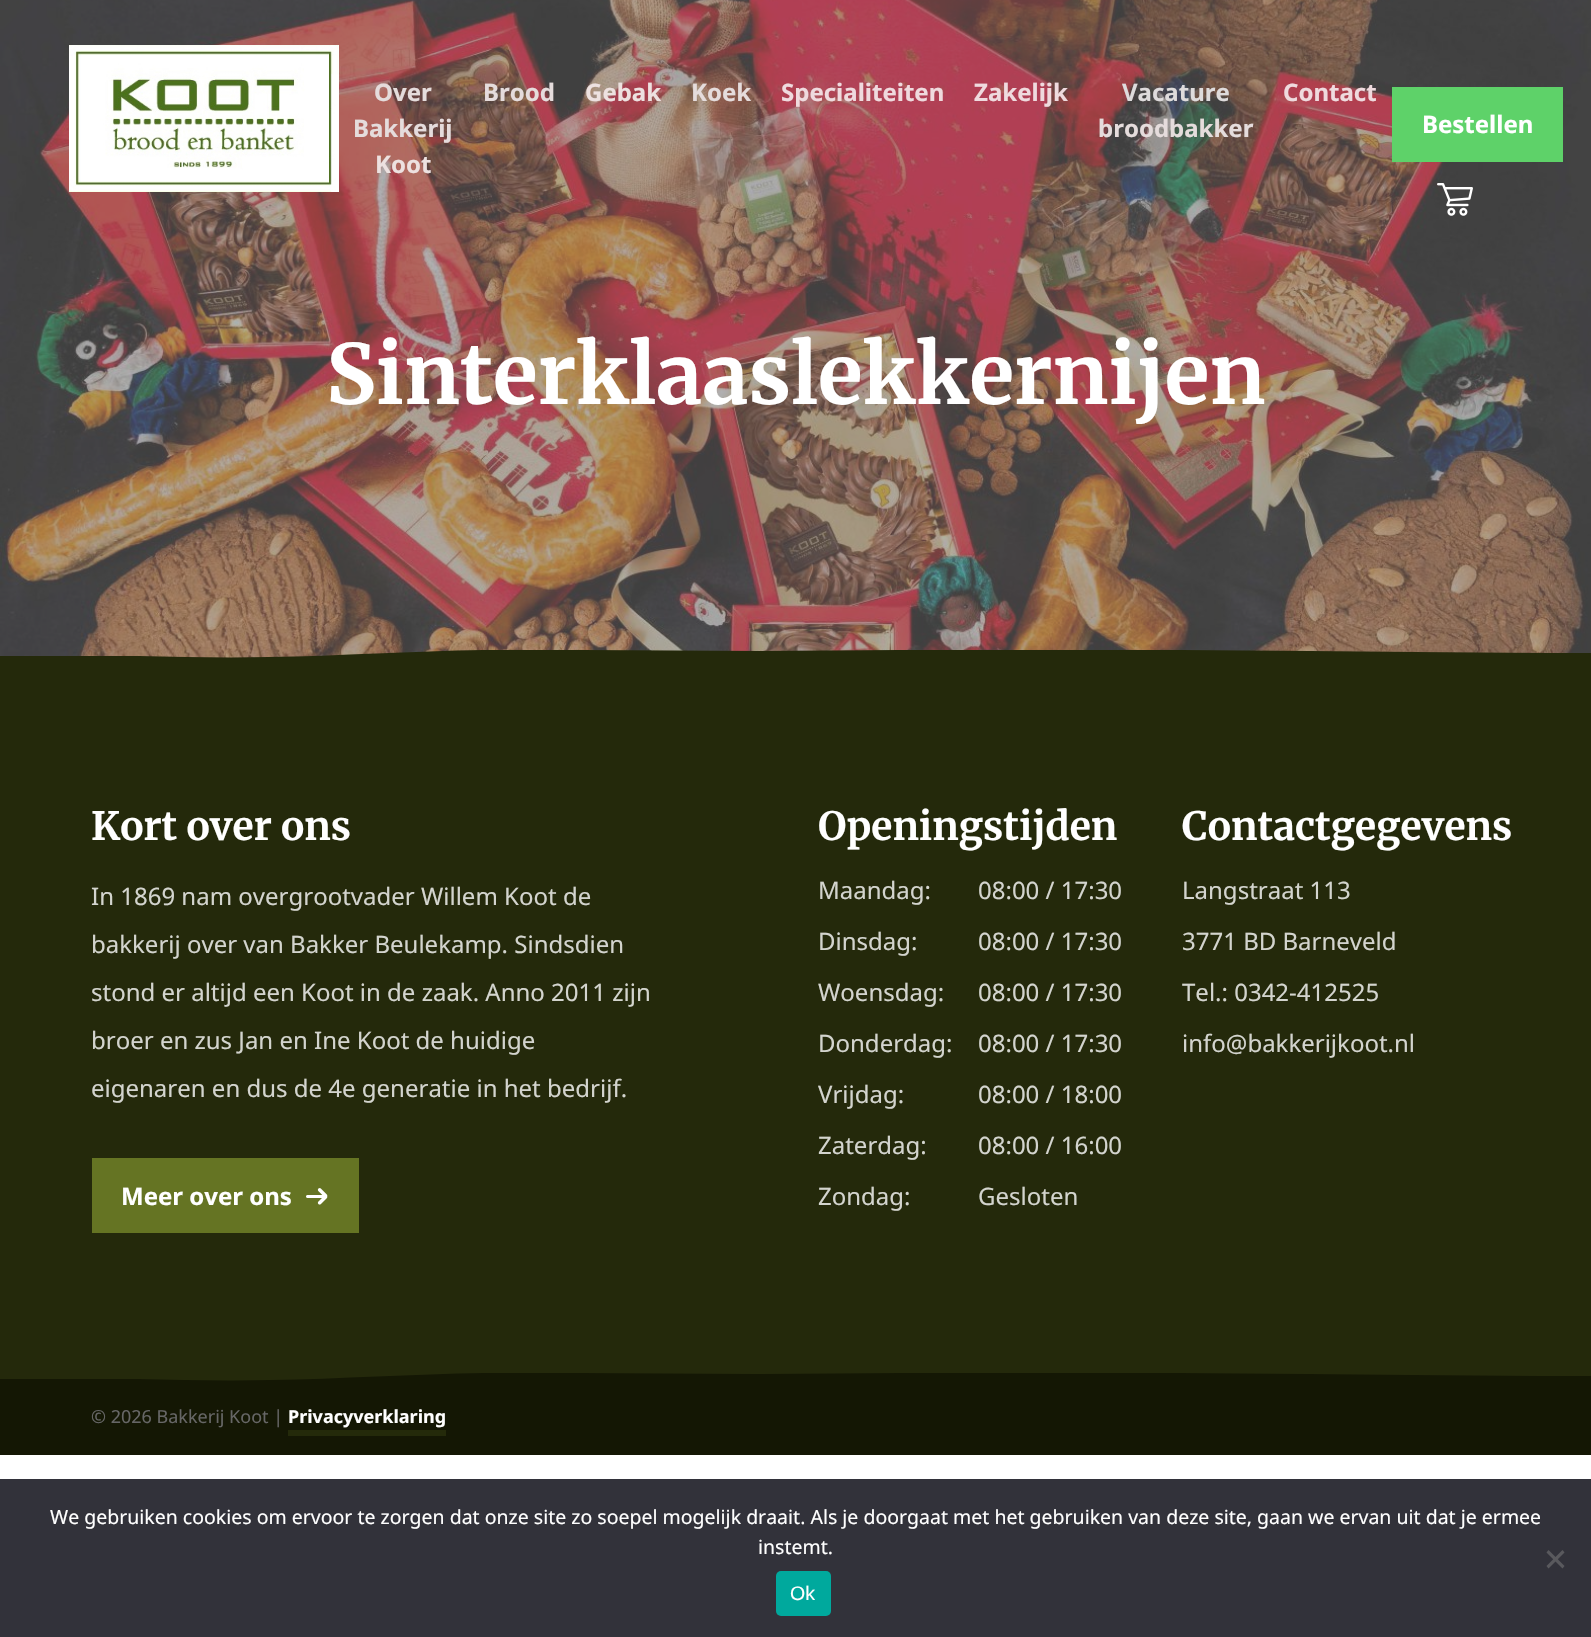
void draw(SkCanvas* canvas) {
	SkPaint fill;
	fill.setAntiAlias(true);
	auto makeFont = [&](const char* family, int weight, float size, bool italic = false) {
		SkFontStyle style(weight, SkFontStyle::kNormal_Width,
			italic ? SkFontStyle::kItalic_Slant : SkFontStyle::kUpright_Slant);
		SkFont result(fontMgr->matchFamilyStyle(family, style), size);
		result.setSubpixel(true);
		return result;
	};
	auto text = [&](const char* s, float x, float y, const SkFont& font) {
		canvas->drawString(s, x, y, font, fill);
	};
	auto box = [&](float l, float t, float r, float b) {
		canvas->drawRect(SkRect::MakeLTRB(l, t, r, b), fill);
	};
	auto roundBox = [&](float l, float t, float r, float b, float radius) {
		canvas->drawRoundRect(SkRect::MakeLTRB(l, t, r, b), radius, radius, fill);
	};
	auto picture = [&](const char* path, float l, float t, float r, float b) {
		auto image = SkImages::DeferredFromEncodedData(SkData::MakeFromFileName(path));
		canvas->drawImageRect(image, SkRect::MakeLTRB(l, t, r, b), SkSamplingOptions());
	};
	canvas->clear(0xFFFFFFFF);
	picture("image2.png", 0, 0, 1591, 658);
	picture("image0.png", 69, 45, 339, 192);
	fill.setColor(0xFF5ED269);
	box(1392, 87, 1563, 162);
	picture("image1.png", 1437, 183, 1473, 216);
	fill.setColor(0xFF24290B);
	box(0, 678, 1591, 1381);
	canvas->drawPath(SkPathBuilder().moveTo(0, 678).lineTo(0, 656).lineTo(139, 656).cubicTo(183, 657, 226, 658, 269, 657).cubicTo(340, 656, 412, 651, 483, 650).lineTo(583, 650).cubicTo(642, 650, 700, 651, 759, 651).lineTo(899, 650).lineTo(995, 650).lineTo(1181, 650).lineTo(1310, 651).lineTo(1415, 652).lineTo(1542, 653).lineTo(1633, 653).lineTo(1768, 655).lineTo(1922, 655).cubicTo(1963, 655, 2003, 658, 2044, 658).lineTo(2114, 657).lineTo(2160, 656).lineTo(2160, 678).close().detach(), fill);
	fill.setColor(0xFF657423);
	box(92, 1158, 359, 1233);
	picture("image3.png", 306, 1188, 328, 1205);
	fill.setColor(0xFF141704);
	box(0, 1401, 1591, 1455);
	canvas->drawPath(SkPathBuilder().moveTo(0, 1401).lineTo(0, 1379).lineTo(139, 1379).cubicTo(183, 1380, 226, 1381, 269, 1380).cubicTo(340, 1379, 412, 1374, 483, 1373).lineTo(583, 1373).cubicTo(642, 1373, 700, 1374, 759, 1374).lineTo(899, 1373).lineTo(995, 1373).lineTo(1181, 1373).lineTo(1310, 1374).lineTo(1415, 1375).lineTo(1542, 1376).lineTo(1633, 1376).lineTo(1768, 1378).lineTo(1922, 1378).cubicTo(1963, 1378, 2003, 1381, 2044, 1381).lineTo(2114, 1380).lineTo(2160, 1379).lineTo(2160, 1401).close().detach(), fill);
	fill.setColor(0xFF242A0A);
	box(288, 1430, 446, 1436);
	fill.setColor(0xFF32323A);
	box(0, 1479, 1591, 1637);
	fill.setColor(0xFF59595D);
	canvas->drawPath(SkPathBuilder().moveTo(1562.5f, 1550).lineTo(1564.5f, 1552.5f).lineTo(1548.5f, 1568.5f).lineTo(1546.5f, 1566).close().detach(), fill);
	canvas->drawPath(SkPathBuilder().moveTo(1546.5f, 1552.5f).lineTo(1548.5f, 1550).lineTo(1564.5f, 1566).lineTo(1562.5f, 1568.5f).close().detach(), fill);
	fill.setColor(0xFF00A99D);
	roundBox(776, 1571, 831, 1616, 5);
	auto font1 = makeFont("Noto Sans", 700, 24);
	fill.setColor(0xFFE5DCDC);
	text("Over", 374, 101, font1);
	text("Bakkerij", 353, 137, font1);
	fill.setColor(0xFFEDE1E0);
	text("Koot", 375, 173, font1);
	fill.setColor(0xFFE5DCDC);
	text("Brood", 483, 101, font1);
	fill.setColor(0xFFEDE1E0);
	text("Gebak", 585, 101, font1);
	fill.setColor(0xFFE5DCDC);
	text("Koek", 691, 101, font1);
	fill.setColor(0xFFEFDADE);
	text("Specialiteiten", 781, 101, font1);
	text("Zakelijk", 974, 101, font1);
	fill.setColor(0xFFDEDBDC);
	text("Vacature", 1122, 101, font1);
	fill.setColor(0xFFE5DCDC);
	text("broodbakker", 1098, 137, font1);
	fill.setColor(0xFFEFDADE);
	text("Contact", 1283, 101, font1);
	fill.setColor(0xFFFFFFFF);
	text("Bestellen", 1422, 133, font1);
	auto font2 = makeFont("Merriweather", 300, 82.5f);
	text("Sinterklaaslekkernijen", 326, 404, font2);
	auto font3 = makeFont("Merriweather", 300, 39);
	text("Kort over ons", 91, 840, font3);
	auto font4 = makeFont("Noto Sans", 400, 24);
	fill.setColor(0xFFD3D4CE);
	text("In 1869 nam overgrootvader Willem Koot de", 91, 905, font4);
	text("bakkerij over van Bakker Beulekamp. Sindsdien", 91, 953, font4);
	text("stond er altijd een Koot in de zaak. Anno 2011 zijn", 91, 1001, font4);
	text("broer en zus Jan en Ine Koot de huidige", 91, 1049, font4);
	text("eigenaren en dus de 4e generatie in het bedrijf.", 91, 1097, font4);
	fill.setColor(0xFFFFFFFF);
	text("Meer over ons", 121, 1205, font1);
	text("Openingstijden", 818, 840, font3);
	fill.setColor(0xFFD3D4CE);
	text("Maandag:", 818, 899, font4);
	text("08:00 / 17:30", 978, 899, font4);
	text("Dinsdag:", 818, 950, font4);
	text("08:00 / 17:30", 978, 950, font4);
	text("Woensdag:", 818, 1001, font4);
	text("08:00 / 17:30", 978, 1001, font4);
	text("Donderdag:", 818, 1052, font4);
	text("08:00 / 17:30", 978, 1052, font4);
	text("Vrijdag:", 818, 1103, font4);
	text("08:00 / 18:00", 978, 1103, font4);
	text("Zaterdag:", 818, 1154, font4);
	text("08:00 / 16:00", 978, 1154, font4);
	text("Zondag:", 818, 1205, font4);
	text("Gesloten", 978, 1205, font4);
	fill.setColor(0xFFFFFFFF);
	text("Contactgegevens", 1182, 840, font3);
	fill.setColor(0xFFD3D4CE);
	text("Langstraat 113", 1182, 899, font4);
	text("3771 BD Barneveld", 1182, 950, font4);
	text("Tel.: 0342-412525", 1182, 1001, font4);
	text("info@bakkerijkoot.nl", 1182, 1052, font4);
	auto font5 = makeFont("Noto Sans", 400, 18);
	fill.setColor(0xFF666666);
	text("© 2026 Bakkerij Koot |", 91, 1423, font5);
	auto font6 = makeFont("Noto Sans", 700, 18);
	fill.setColor(0xFFFFFFFF);
	text("Privacyverklaring", 288, 1423, font6);
	auto font7 = makeFont("Noto Sans", 400, 19.5f);
	text("We gebruiken cookies om ervoor te zorgen dat onze site zo soepel mogelijk draait. Als je doorgaat met het gebruiken van deze site, gaan we ervan uit dat je ermee", 50, 1524, font7);
	text("instemt.", 758, 1554, font7);
	auto font8 = makeFont("Liberation Sans", 400, 19.5f);
	text("Ok", 790, 1600, font8);
}
